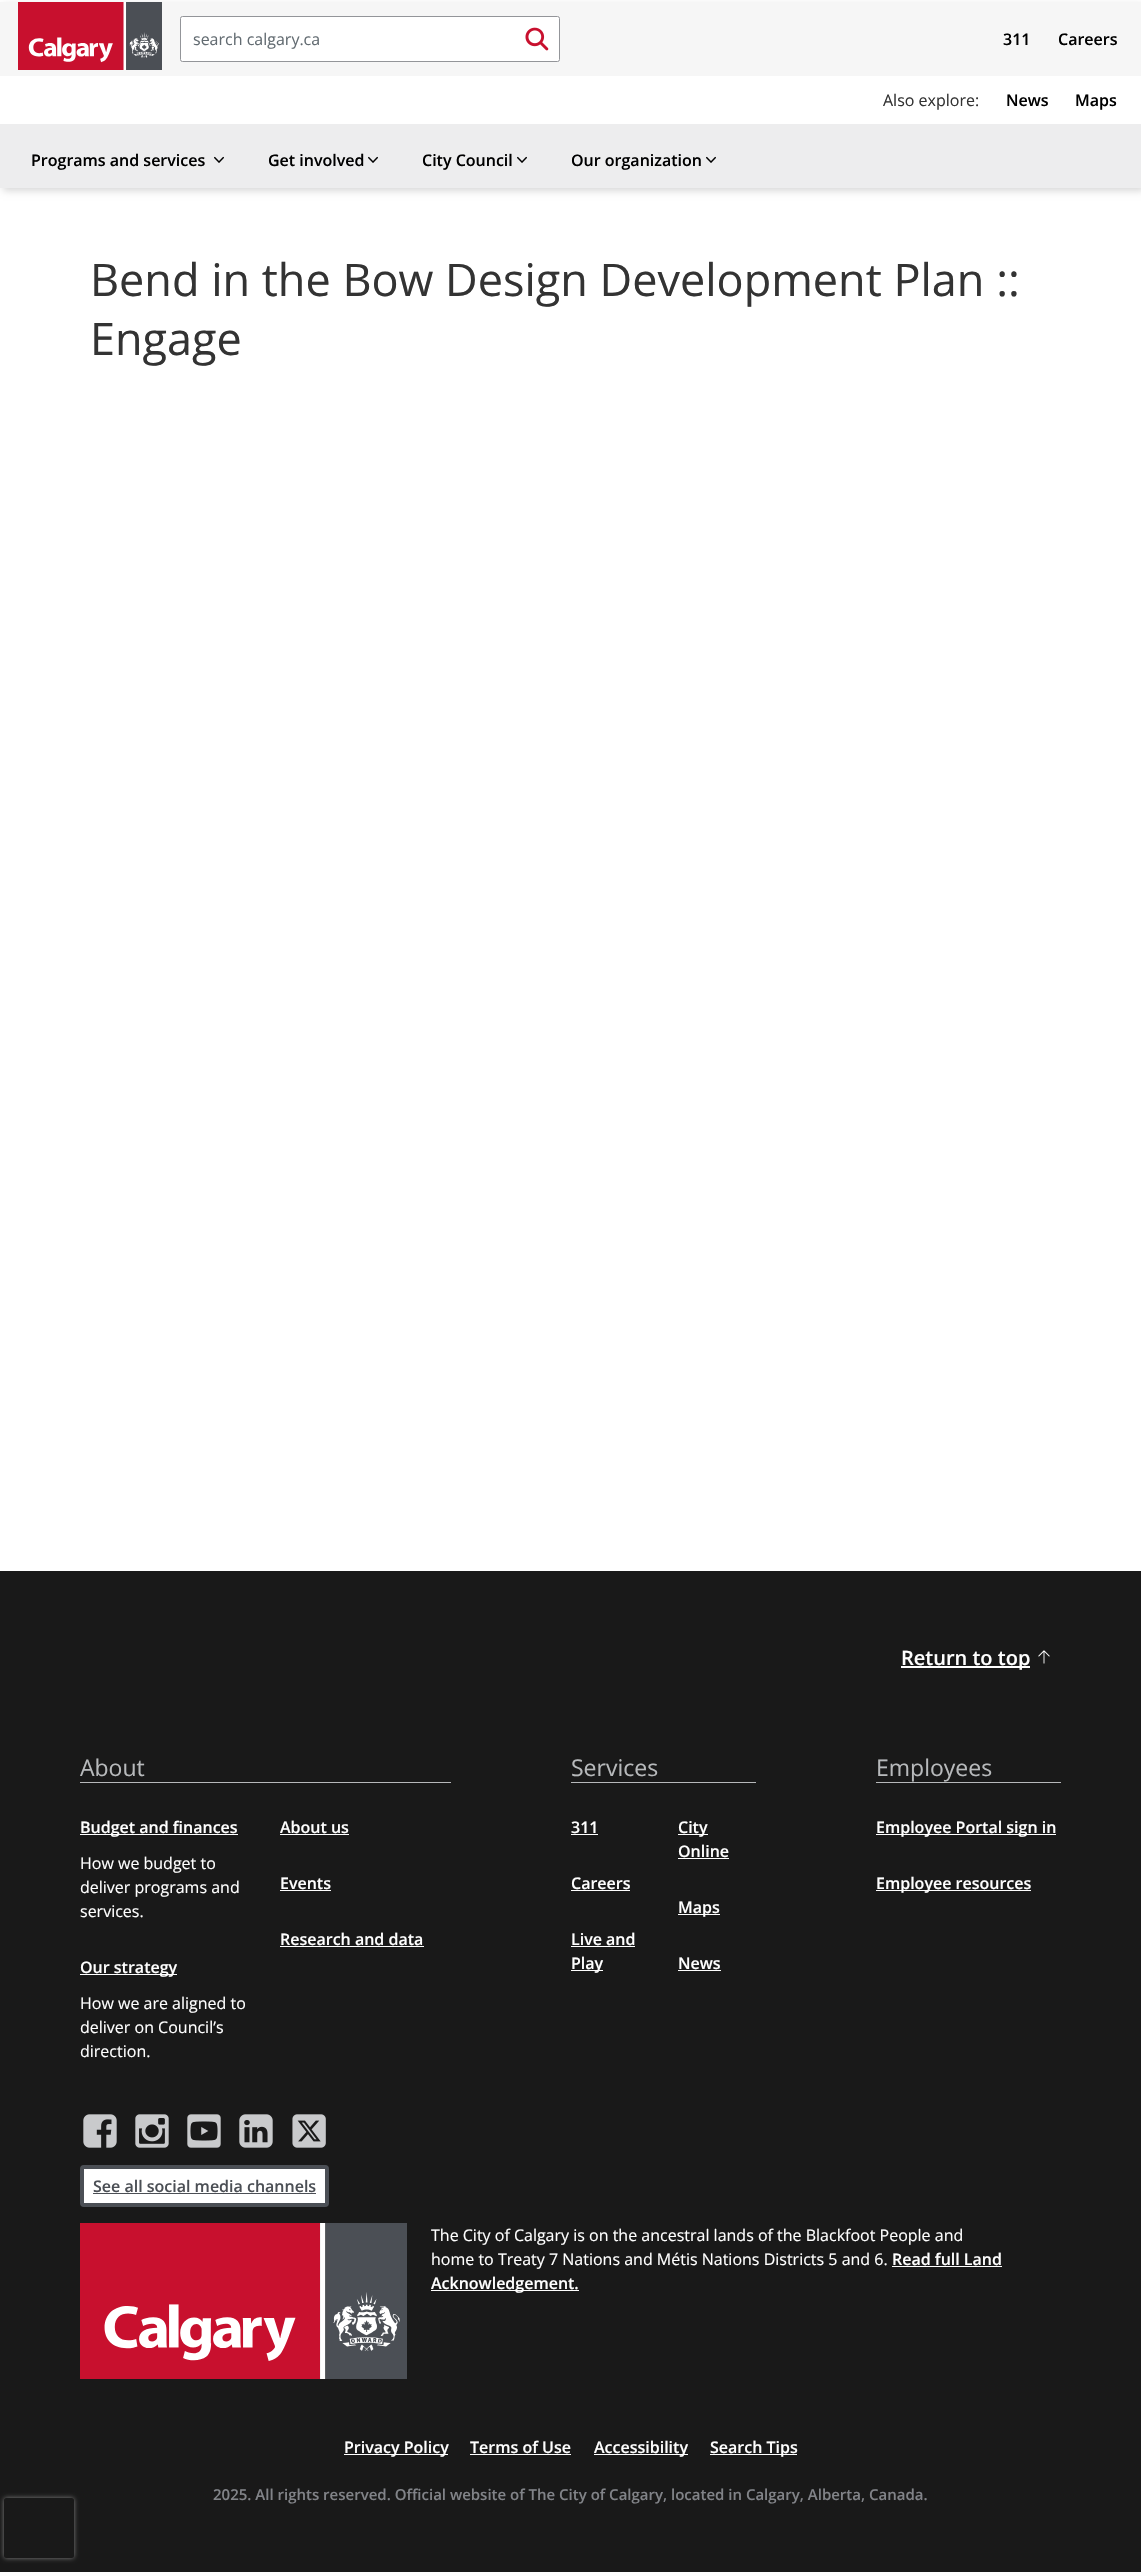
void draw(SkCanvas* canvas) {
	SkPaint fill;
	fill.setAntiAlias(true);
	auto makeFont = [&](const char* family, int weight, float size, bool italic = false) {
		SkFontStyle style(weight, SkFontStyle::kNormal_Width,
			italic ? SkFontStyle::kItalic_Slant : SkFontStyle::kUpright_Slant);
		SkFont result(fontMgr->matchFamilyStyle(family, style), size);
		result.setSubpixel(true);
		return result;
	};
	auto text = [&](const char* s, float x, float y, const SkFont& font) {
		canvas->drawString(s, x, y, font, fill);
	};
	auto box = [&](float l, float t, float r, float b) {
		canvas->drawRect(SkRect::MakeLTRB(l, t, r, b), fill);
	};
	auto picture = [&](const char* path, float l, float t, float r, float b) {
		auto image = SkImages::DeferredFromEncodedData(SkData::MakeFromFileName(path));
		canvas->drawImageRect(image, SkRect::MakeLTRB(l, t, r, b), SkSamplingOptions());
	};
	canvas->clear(0xFFFFFFFF);
	canvas->save();
	canvas->clipPath(SkPathBuilder(SkPathFillType::kEvenOdd).moveTo(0, 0).lineTo(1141, 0).lineTo(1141, 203).lineTo(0, 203).close().moveTo(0, 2).lineTo(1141, 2).lineTo(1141, 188).lineTo(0, 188).close().detach(), true);
	fill.setColor(0x26000000);
	fill.setMaskFilter(SkMaskFilter::MakeBlur(kNormal_SkBlurStyle, 3.5f));
	canvas->drawRect(SkRect::MakeLTRB(3, 5, 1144, 191), fill);
	fill.setMaskFilter(nullptr);
	canvas->restore();
	fill.setColor(0xFFF6F6F6);
	box(0, 2, 1141, 76);
	picture("image0.png", 18, 2, 162, 70);
	fill.setColor(0xFFFFFFFF);
	canvas->drawRoundRect(SkRect::MakeLTRB(180.5f, 16.5f, 559.5f, 61.5f), 2, 2, fill);
	fill.setStyle(SkPaint::kStroke_Style);
	fill.setStrokeWidth(1);
	fill.setColor(0xFF939599);
	canvas->drawRoundRect(SkRect::MakeLTRB(180.5f, 16.5f, 559.5f, 61.5f), 2, 2, fill);
	picture("image1.png", 525, 27, 549, 51);
	fill.setStyle(SkPaint::kFill_Style);
	fill.setColor(0xFFEDEDEE);
	box(0, 124, 1141, 188);
	picture("image2.png", 214, 156, 224, 163);
	picture("image2.png", 368, 156, 378, 163);
	picture("image2.png", 517, 156, 527, 163);
	picture("image2.png", 706, 156, 716, 163);
	fill.setColor(0xFF191919);
	box(0, 1571, 1141, 2572);
	fill.setColor(0xFFFFFFFF);
	box(901, 1666, 1030, 1668);
	picture("image3.png", 1038, 1650, 1050, 1664);
	fill.setColor(0xFFB7B9BB);
	box(80, 1782, 451, 1783);
	fill.setColor(0xFFFFFFFF);
	box(80, 1834, 238, 1835);
	box(280, 1834, 349, 1835);
	box(280, 1890, 331, 1891);
	box(280, 1946, 424, 1947);
	box(80, 1974, 177, 1975);
	fill.setColor(0xFFB7B9BB);
	box(571, 1782, 756, 1783);
	fill.setColor(0xFFFFFFFF);
	box(571, 1834, 598, 1835);
	box(678, 1834, 708, 1835);
	box(678, 1858, 729, 1859);
	box(571, 1890, 630, 1891);
	box(678, 1914, 720, 1915);
	box(571, 1946, 635, 1947);
	box(571, 1970, 603, 1971);
	box(678, 1970, 721, 1971);
	fill.setColor(0xFFB7B9BB);
	box(876, 1782, 1061, 1783);
	fill.setColor(0xFFFFFFFF);
	box(876, 1834, 1056, 1835);
	box(876, 1890, 1031, 1891);
	picture("image4.png", 83, 2114, 117, 2148);
	picture("image5.png", 135, 2114, 169, 2148);
	picture("image6.png", 187, 2114, 221, 2148);
	picture("image7.png", 239, 2114, 273, 2148);
	picture("image8.png", 292, 2114, 326, 2148);
	canvas->drawRoundRect(SkRect::MakeLTRB(82, 2167, 327, 2205), 2, 2, fill);
	fill.setStyle(SkPaint::kStroke_Style);
	fill.setStrokeWidth(4);
	fill.setColor(0xFF4B4F55);
	canvas->drawRoundRect(SkRect::MakeLTRB(82, 2167, 327, 2205), 2, 2, fill);
	fill.setStyle(SkPaint::kFill_Style);
	box(93, 2193, 316, 2194);
	picture("image9.png", 80, 2223, 407, 2379);
	fill.setColor(0xFFFFFFFF);
	box(892, 2266, 1002, 2267);
	box(431, 2290, 579, 2291);
	box(344, 2454, 448, 2455);
	box(470, 2454, 571, 2455);
	box(594, 2454, 688, 2455);
	box(710, 2454, 797, 2455);
	canvas->save();
	canvas->clipPath(SkPathBuilder(SkPathFillType::kEvenOdd).moveTo(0, 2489).lineTo(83, 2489).lineTo(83, 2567).lineTo(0, 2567).close().moveTo(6, 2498).lineTo(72, 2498).cubicTo(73, 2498, 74, 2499, 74, 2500).lineTo(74, 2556).cubicTo(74, 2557, 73, 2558, 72, 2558).lineTo(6, 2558).cubicTo(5, 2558, 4, 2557, 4, 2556).lineTo(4, 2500).cubicTo(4, 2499, 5, 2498, 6, 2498).close().detach(), true);
	fill.setColor(0xFF808080);
	fill.setMaskFilter(SkMaskFilter::MakeBlur(kNormal_SkBlurStyle, 2.5f));
	canvas->drawRoundRect(SkRect::MakeLTRB(4, 2498, 74, 2558), 2, 2, fill);
	fill.setMaskFilter(nullptr);
	canvas->restore();
	auto font1 = makeFont("Open Sans", 400, 16);
	fill.setColor(0xFF636C72);
	text("search calgary.ca", 193, 45, font1);
	auto font2 = makeFont("Open Sans", 600, 16);
	fill.setColor(0xFF000000);
	text("311", 1003, 45, font2);
	text("Careers", 1058, 45, font2);
	fill.setColor(0xFF333333);
	text("Also explore:", 883, 106, font1);
	fill.setColor(0xFF000000);
	text("News", 1006, 106, font2);
	text("Maps", 1075, 106, font2);
	text("Programs and services", 31, 166, font2);
	text("Get involved", 268, 166, font2);
	text("City Council", 422, 166, font2);
	text("Our organization", 571, 166, font2);
	auto font3 = makeFont("Open Sans", 400, 45);
	fill.setColor(0xFF333333);
	text("Bend in the Bow Design Development Plan ::", 90, 296, font3);
	text("Engage", 90, 355, font3);
	auto font4 = makeFont("Open Sans", 600, 20);
	fill.setColor(0xFFFFFFFF);
	text("Return to top", 901, 1665, font4);
	auto font5 = makeFont("Open Sans", 400, 23);
	fill.setColor(0xFFB7B9BB);
	text("About", 80, 1776, font5);
	fill.setColor(0xFFFFFFFF);
	text("Budget and finances", 80, 1833, font2);
	text("How we budget to", 80, 1869, font1);
	text("deliver programs and", 80, 1893, font1);
	text("services.", 80, 1917, font1);
	text("About us", 280, 1833, font2);
	text("Events", 280, 1889, font2);
	text("Research and data", 280, 1945, font2);
	text("Our strategy", 80, 1973, font2);
	text("How we are aligned to", 80, 2009, font1);
	text("deliver on Council’s", 80, 2033, font1);
	text("direction.", 80, 2057, font1);
	fill.setColor(0xFFB7B9BB);
	text("Services", 571, 1776, font5);
	fill.setColor(0xFFFFFFFF);
	text("311", 571, 1833, font2);
	text("City", 678, 1833, font2);
	text("Online", 678, 1857, font2);
	text("Careers", 571, 1889, font2);
	text("Maps", 678, 1913, font2);
	text("Live and", 571, 1945, font2);
	text("Play", 571, 1969, font2);
	text("News", 678, 1969, font2);
	fill.setColor(0xFFB7B9BB);
	text("Employees", 876, 1776, font5);
	fill.setColor(0xFFFFFFFF);
	text("Employee Portal sign in", 876, 1833, font2);
	text("Employee resources", 876, 1889, font2);
	fill.setColor(0xFF4B4F55);
	text("See all social media channels", 93, 2192, font2);
	fill.setColor(0xFFFFFFFF);
	text("The City of Calgary is on the ancestral lands of the Blackfoot People and", 431, 2241, font1);
	text("home to Treaty 7 Nations and Métis Nations Districts 5 and 6.", 431, 2265, font1);
	text("Read full Land", 892, 2265, font2);
	text("Acknowledgement.", 431, 2289, font2);
	text("Privacy Policy", 344, 2453, font2);
	text("Terms of Use", 470, 2453, font2);
	text("Accessibility", 594, 2453, font2);
	text("Search Tips", 710, 2453, font2);
	auto font6 = makeFont("Open Sans", 600, 15);
	fill.setColor(0xFF818388);
	text("2025. All rights reserved. Official website of The City of Calgary, located in Calgary, Alberta, Canada.", 213, 2500, font6);
}
